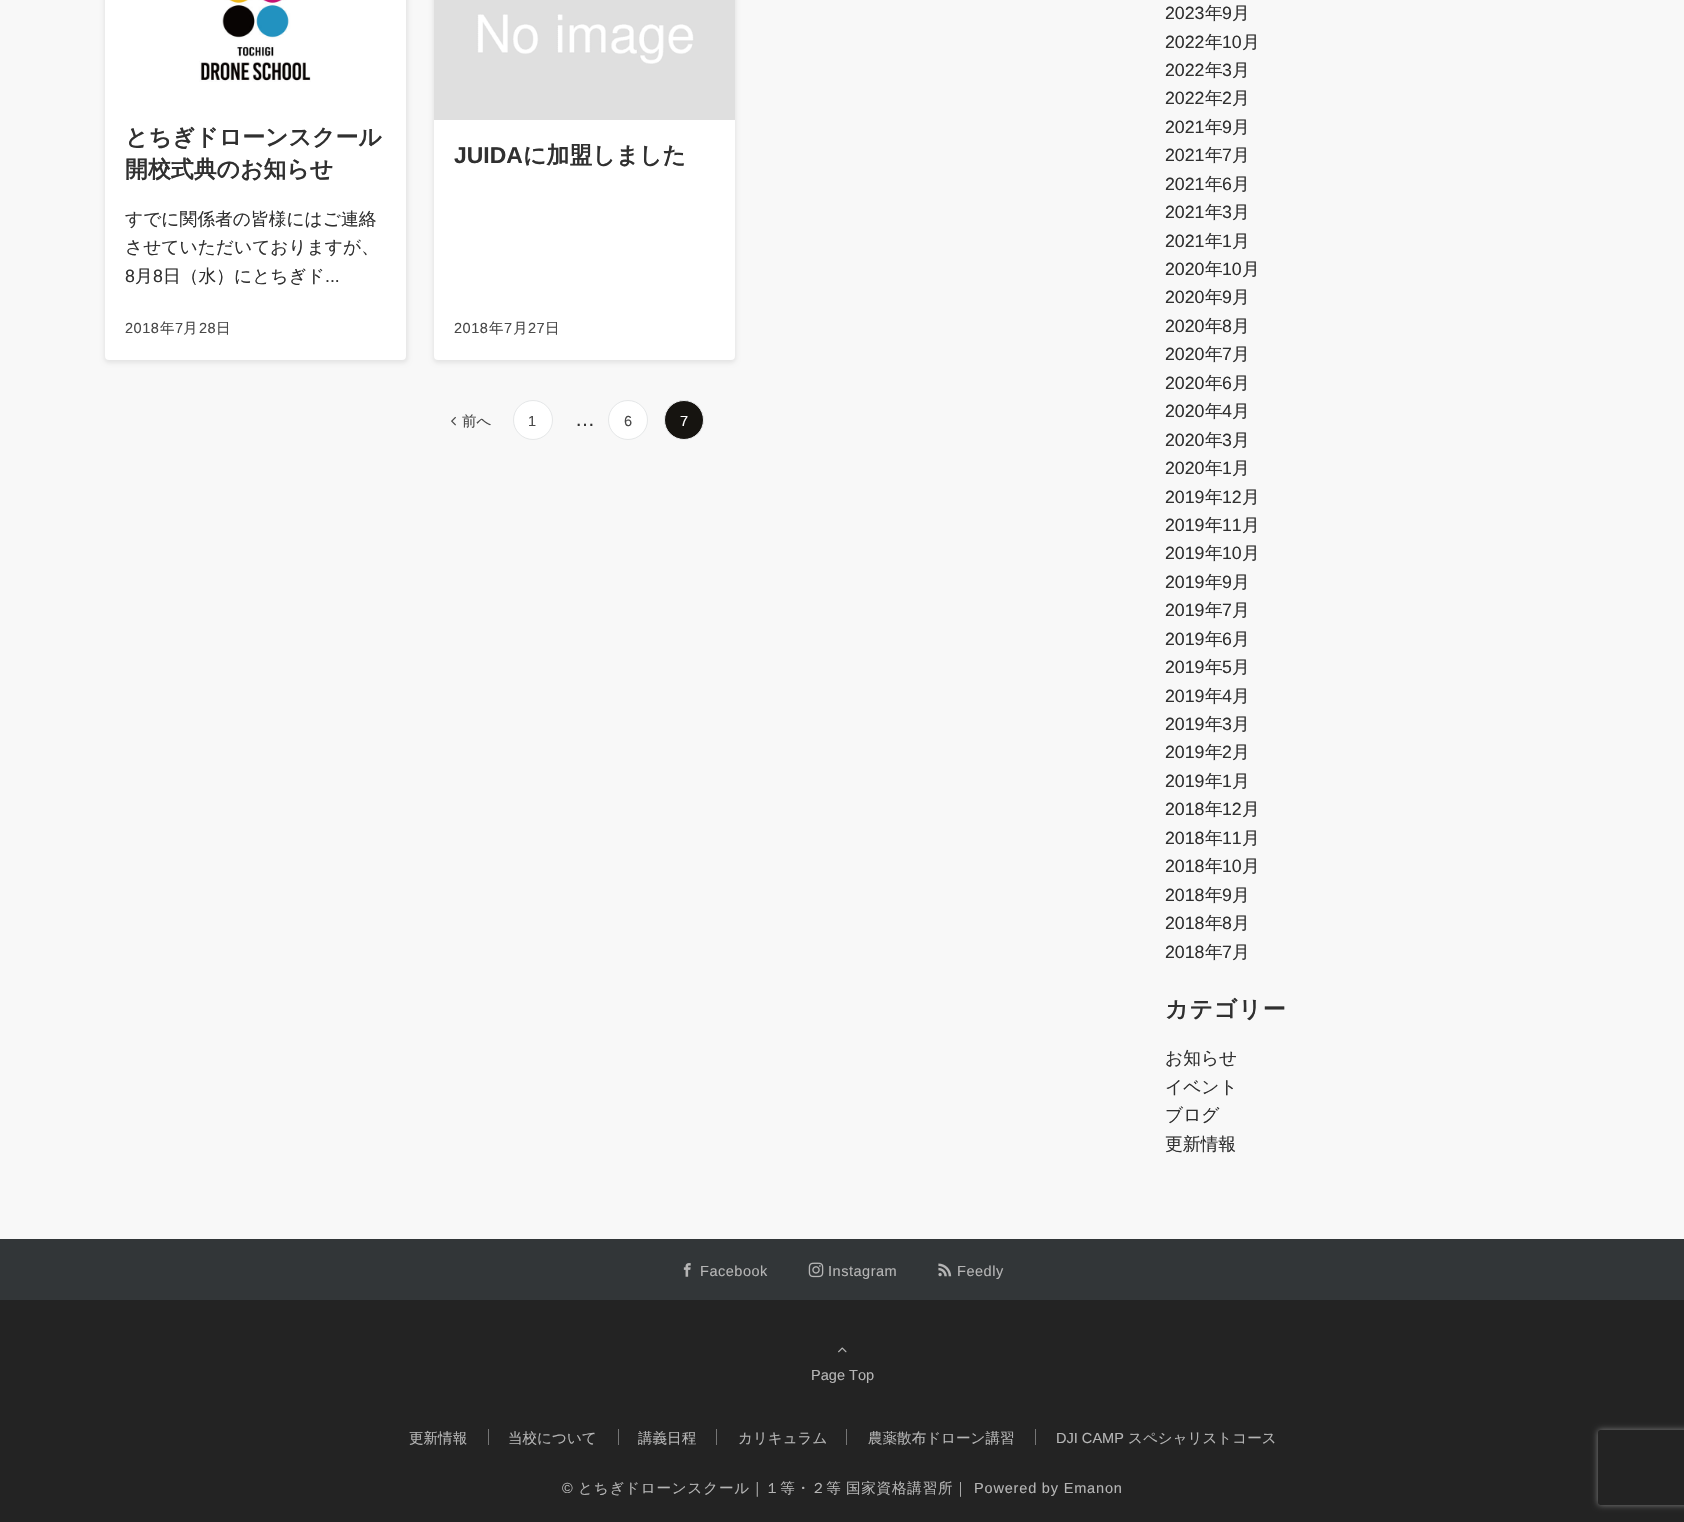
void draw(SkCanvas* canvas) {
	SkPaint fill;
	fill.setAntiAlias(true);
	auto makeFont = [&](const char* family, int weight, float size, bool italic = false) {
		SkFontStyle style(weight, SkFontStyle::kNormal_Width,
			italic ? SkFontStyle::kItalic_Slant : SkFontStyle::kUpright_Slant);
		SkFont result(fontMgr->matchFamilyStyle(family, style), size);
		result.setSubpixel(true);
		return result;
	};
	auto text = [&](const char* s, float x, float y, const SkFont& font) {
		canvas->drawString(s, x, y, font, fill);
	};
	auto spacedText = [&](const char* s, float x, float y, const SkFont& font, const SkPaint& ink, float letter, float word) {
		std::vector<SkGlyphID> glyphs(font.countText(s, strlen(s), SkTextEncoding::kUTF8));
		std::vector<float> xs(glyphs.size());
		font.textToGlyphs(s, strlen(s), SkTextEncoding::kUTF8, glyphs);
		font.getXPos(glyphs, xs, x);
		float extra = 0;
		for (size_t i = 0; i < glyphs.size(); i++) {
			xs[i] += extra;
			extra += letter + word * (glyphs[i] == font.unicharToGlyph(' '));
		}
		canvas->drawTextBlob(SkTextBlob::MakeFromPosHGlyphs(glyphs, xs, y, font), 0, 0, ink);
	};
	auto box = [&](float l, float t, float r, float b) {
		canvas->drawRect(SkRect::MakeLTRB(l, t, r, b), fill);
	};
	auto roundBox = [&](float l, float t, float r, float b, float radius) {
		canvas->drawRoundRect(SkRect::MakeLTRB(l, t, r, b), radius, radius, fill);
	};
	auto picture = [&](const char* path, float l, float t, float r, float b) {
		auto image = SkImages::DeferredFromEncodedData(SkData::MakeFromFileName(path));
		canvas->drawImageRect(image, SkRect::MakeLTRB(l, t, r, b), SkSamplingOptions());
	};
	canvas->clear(0xFFF8F8F8);
	fill.setColor(0x14000000);
	fill.setMaskFilter(SkMaskFilter::MakeBlur(kNormal_SkBlurStyle, 2));
	canvas->drawRoundRect(SkRect::MakeLTRB(104, -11, 408, 363), 5, 5, fill);
	fill.setMaskFilter(nullptr);
	fill.setColor(0xFFFFFFFF);
	roundBox(105, -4, 406, 360, 4);
	picture("image0.png", 199, 0, 311, 82);
	fill.setColor(0x14000000);
	fill.setMaskFilter(SkMaskFilter::MakeBlur(kNormal_SkBlurStyle, 2));
	canvas->drawRoundRect(SkRect::MakeLTRB(433, -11, 736, 363), 5, 5, fill);
	fill.setMaskFilter(nullptr);
	fill.setColor(0xFFFFFFFF);
	roundBox(434, -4, 735, 360, 4);
	picture("image1.png", 434, 0, 735, 120);
	picture("image2.png", 451, 416, 456, 426);
	canvas->drawCircle(533, 420, 19.5f, fill);
	fill.setStyle(SkPaint::kStroke_Style);
	fill.setStrokeWidth(1);
	fill.setColor(0xFFE5E7E8);
	canvas->drawCircle(533, 420, 19.5f, fill);
	fill.setStyle(SkPaint::kFill_Style);
	fill.setColor(0xFFFFFFFF);
	canvas->drawCircle(628, 420, 19.5f, fill);
	fill.setStyle(SkPaint::kStroke_Style);
	fill.setColor(0xFFE5E7E8);
	canvas->drawCircle(628, 420, 19.5f, fill);
	fill.setStyle(SkPaint::kFill_Style);
	fill.setColor(0xFF161410);
	canvas->drawCircle(684, 420, 19.5f, fill);
	fill.setStyle(SkPaint::kStroke_Style);
	fill.setColor(0xFFEEEFF0);
	canvas->drawCircle(684, 420, 19.5f, fill);
	fill.setStyle(SkPaint::kFill_Style);
	fill.setColor(0xFF232323);
	box(0, 1300, 1684, 1522);
	fill.setColor(0xFF323638);
	box(0, 1239, 1684, 1300);
	picture("image3.png", 683, 1263, 691, 1277);
	picture("image4.png", 808, 1262, 824, 1278);
	picture("image5.png", 938, 1263, 952, 1277);
	picture("image6.png", 838, 1347, 847, 1353);
	fill.setColor(0xFF757575);
	box(488, 1429, 489, 1445);
	box(618, 1429, 619, 1445);
	box(716, 1429, 717, 1445);
	box(846, 1429, 847, 1445);
	box(1035, 1429, 1036, 1445);
	canvas->save();
	canvas->clipPath(SkPathBuilder(SkPathFillType::kEvenOdd).moveTo(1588, 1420).lineTo(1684, 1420).lineTo(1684, 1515).lineTo(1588, 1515).close().moveTo(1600.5f, 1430).lineTo(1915.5f, 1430).cubicTo(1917, 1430, 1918, 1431, 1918, 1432.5f).lineTo(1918, 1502.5f).cubicTo(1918, 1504, 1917, 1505, 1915.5f, 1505).lineTo(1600.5f, 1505).cubicTo(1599, 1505, 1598, 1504, 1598, 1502.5f).lineTo(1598, 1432.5f).cubicTo(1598, 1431, 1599, 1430, 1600.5f, 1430).close().detach(), true);
	fill.setColor(0xFF808080);
	fill.setMaskFilter(SkMaskFilter::MakeBlur(kNormal_SkBlurStyle, 3));
	canvas->drawRoundRect(SkRect::MakeLTRB(1598, 1430, 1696, 1505), 2.5f, 2.5f, fill);
	fill.setMaskFilter(nullptr);
	canvas->restore();
	auto font1 = makeFont("WenQuanYi Zen Hei", 700, 22.9f);
	fill.setColor(0xFF303030);
	text("とちぎドローンスクール", 125, 145, font1);
	text("開校式典のお知らせ", 125, 177, font1);
	auto font2 = makeFont("WenQuanYi Zen Hei", 500, 17.75f);
	text("すでに関係者の皆様にはご連絡", 125, 225, font2);
	text("させていただいておりますが、", 125, 253, font2);
	auto font3 = makeFont("Liberation Sans", 400, 17.75f);
	text("8", 125, 282, font3);
	text("月", 135, 282, font2);
	text("8", 153, 282, font3);
	text("日（水）にとちぎド", 163, 282, font2);
	text("...", 325, 282, font3);
	auto font4 = makeFont("Liberation Sans", 400, 14.55f);
	fill.setColor(0xFF484848);
	spacedText("2018", 125, 333, font4, fill, 0.5f, 0);
	auto font5 = makeFont("WenQuanYi Zen Hei", 500, 14.55f);
	spacedText("年", 160, 333, font5, fill, 0.5f, 0);
	spacedText("7", 175, 333, font4, fill, 0.5f, 0);
	spacedText("月", 183, 333, font5, fill, 0.5f, 0);
	spacedText("28", 199, 333, font4, fill, 0.5f, 0);
	spacedText("日", 216, 333, font5, fill, 0.5f, 0);
	auto font6 = makeFont("Liberation Sans", 700, 22.9f);
	fill.setColor(0xFF303030);
	text("JUIDA", 454, 163, font6);
	text("に加盟しました", 523, 163, font1);
	fill.setColor(0xFF484848);
	spacedText("2018", 454, 333, font4, fill, 0.5f, 0);
	spacedText("年", 489, 333, font5, fill, 0.5f, 0);
	spacedText("7", 504, 333, font4, fill, 0.5f, 0);
	spacedText("月", 513, 333, font5, fill, 0.5f, 0);
	spacedText("27", 528, 333, font4, fill, 0.5f, 0);
	spacedText("日", 545, 333, font5, fill, 0.5f, 0);
	text("前へ", 462, 426, font5);
	text("1", 528, 426, font4);
	auto font7 = makeFont("Liberation Sans", 400, 20);
	fill.setColor(0xFF303030);
	text("…", 575, 426, font7);
	fill.setColor(0xFF484848);
	text("6", 624, 426, font4);
	fill.setColor(0xFFFFFFFF);
	text("7", 680, 426, font4);
	fill.setColor(0xFF303030);
	text("2023", 1165, 19, font3);
	text("年", 1205, 19, font2);
	text("9", 1222, 19, font3);
	text("月", 1232, 19, font2);
	text("2022", 1165, 48, font3);
	text("年", 1205, 48, font2);
	text("10", 1222, 48, font3);
	text("月", 1242, 48, font2);
	text("2022", 1165, 76, font3);
	text("年", 1205, 76, font2);
	text("3", 1222, 76, font3);
	text("月", 1232, 76, font2);
	text("2022", 1165, 104, font3);
	text("年", 1205, 104, font2);
	text("2", 1222, 104, font3);
	text("月", 1232, 104, font2);
	text("2021", 1165, 133, font3);
	text("年", 1205, 133, font2);
	text("9", 1222, 133, font3);
	text("月", 1232, 133, font2);
	text("2021", 1165, 161, font3);
	text("年", 1205, 161, font2);
	text("7", 1222, 161, font3);
	text("月", 1232, 161, font2);
	text("2021", 1165, 190, font3);
	text("年", 1205, 190, font2);
	text("6", 1222, 190, font3);
	text("月", 1232, 190, font2);
	text("2021", 1165, 218, font3);
	text("年", 1205, 218, font2);
	text("3", 1222, 218, font3);
	text("月", 1232, 218, font2);
	text("2021", 1165, 247, font3);
	text("年", 1205, 247, font2);
	text("1", 1222, 247, font3);
	text("月", 1232, 247, font2);
	text("2020", 1165, 275, font3);
	text("年", 1205, 275, font2);
	text("10", 1222, 275, font3);
	text("月", 1242, 275, font2);
	text("2020", 1165, 303, font3);
	text("年", 1205, 303, font2);
	text("9", 1222, 303, font3);
	text("月", 1232, 303, font2);
	text("2020", 1165, 332, font3);
	text("年", 1205, 332, font2);
	text("8", 1222, 332, font3);
	text("月", 1232, 332, font2);
	text("2020", 1165, 360, font3);
	text("年", 1205, 360, font2);
	text("7", 1222, 360, font3);
	text("月", 1232, 360, font2);
	text("2020", 1165, 389, font3);
	text("年", 1205, 389, font2);
	text("6", 1222, 389, font3);
	text("月", 1232, 389, font2);
	text("2020", 1165, 417, font3);
	text("年", 1205, 417, font2);
	text("4", 1222, 417, font3);
	text("月", 1232, 417, font2);
	text("2020", 1165, 446, font3);
	text("年", 1205, 446, font2);
	text("3", 1222, 446, font3);
	text("月", 1232, 446, font2);
	text("2020", 1165, 474, font3);
	text("年", 1205, 474, font2);
	text("1", 1222, 474, font3);
	text("月", 1232, 474, font2);
	text("2019", 1165, 503, font3);
	text("年", 1205, 503, font2);
	text("12", 1222, 503, font3);
	text("月", 1242, 503, font2);
	text("2019", 1165, 531, font3);
	text("年", 1205, 531, font2);
	text("11", 1222, 531, font3);
	text("月", 1242, 531, font2);
	text("2019", 1165, 559, font3);
	text("年", 1205, 559, font2);
	text("10", 1222, 559, font3);
	text("月", 1242, 559, font2);
	text("2019", 1165, 588, font3);
	text("年", 1205, 588, font2);
	text("9", 1222, 588, font3);
	text("月", 1232, 588, font2);
	text("2019", 1165, 616, font3);
	text("年", 1205, 616, font2);
	text("7", 1222, 616, font3);
	text("月", 1232, 616, font2);
	text("2019", 1165, 645, font3);
	text("年", 1205, 645, font2);
	text("6", 1222, 645, font3);
	text("月", 1232, 645, font2);
	text("2019", 1165, 673, font3);
	text("年", 1205, 673, font2);
	text("5", 1222, 673, font3);
	text("月", 1232, 673, font2);
	text("2019", 1165, 702, font3);
	text("年", 1205, 702, font2);
	text("4", 1222, 702, font3);
	text("月", 1232, 702, font2);
	text("2019", 1165, 730, font3);
	text("年", 1205, 730, font2);
	text("3", 1222, 730, font3);
	text("月", 1232, 730, font2);
	text("2019", 1165, 758, font3);
	text("年", 1205, 758, font2);
	text("2", 1222, 758, font3);
	text("月", 1232, 758, font2);
	text("2019", 1165, 787, font3);
	text("年", 1205, 787, font2);
	text("1", 1222, 787, font3);
	text("月", 1232, 787, font2);
	text("2018", 1165, 815, font3);
	text("年", 1205, 815, font2);
	text("12", 1222, 815, font3);
	text("月", 1242, 815, font2);
	text("2018", 1165, 844, font3);
	text("年", 1205, 844, font2);
	text("11", 1222, 844, font3);
	text("月", 1242, 844, font2);
	text("2018", 1165, 872, font3);
	text("年", 1205, 872, font2);
	text("10", 1222, 872, font3);
	text("月", 1242, 872, font2);
	text("2018", 1165, 901, font3);
	text("年", 1205, 901, font2);
	text("9", 1222, 901, font3);
	text("月", 1232, 901, font2);
	text("2018", 1165, 929, font3);
	text("年", 1205, 929, font2);
	text("8", 1222, 929, font3);
	text("月", 1232, 929, font2);
	text("2018", 1165, 958, font3);
	text("年", 1205, 958, font2);
	text("7", 1222, 958, font3);
	text("月", 1232, 958, font2);
	spacedText("カテゴリー", 1165, 1017, font1, fill, 1, 0);
	text("お知らせ", 1165, 1064, font2);
	text("イベント", 1165, 1093, font2);
	text("ブログ", 1165, 1121, font2);
	text("更新情報", 1165, 1150, font2);
	fill.setColor(0xFFB5B5B5);
	spacedText("Facebook", 700, 1276, font4, fill, 0.5f, 0);
	spacedText("Instagram", 828, 1276, font4, fill, 0.5f, 0);
	spacedText("Feedly", 957, 1276, font4, fill, 0.5f, 0);
	text("Page Top", 811, 1380, font4);
	text("更新情報", 409, 1443, font5);
	text("当校について", 508, 1443, font5);
	text("講義日程", 638, 1443, font5);
	text("カリキュラム", 738, 1443, font5);
	text("農薬散布ドローン講習", 868, 1443, font5);
	text("DJI CAMP", 1056, 1443, font4);
	text("スペシャリストコース", 1128, 1443, font5);
	spacedText("©", 562, 1493, font4, fill, 0.8f, 0);
	spacedText("とちぎドローンスクール｜１等・２等 国家資格講習所｜", 578, 1493, font5, fill, 0.8f, -1);
	spacedText("Powered by Emanon", 974, 1493, font4, fill, 0.8f, 0);
}
